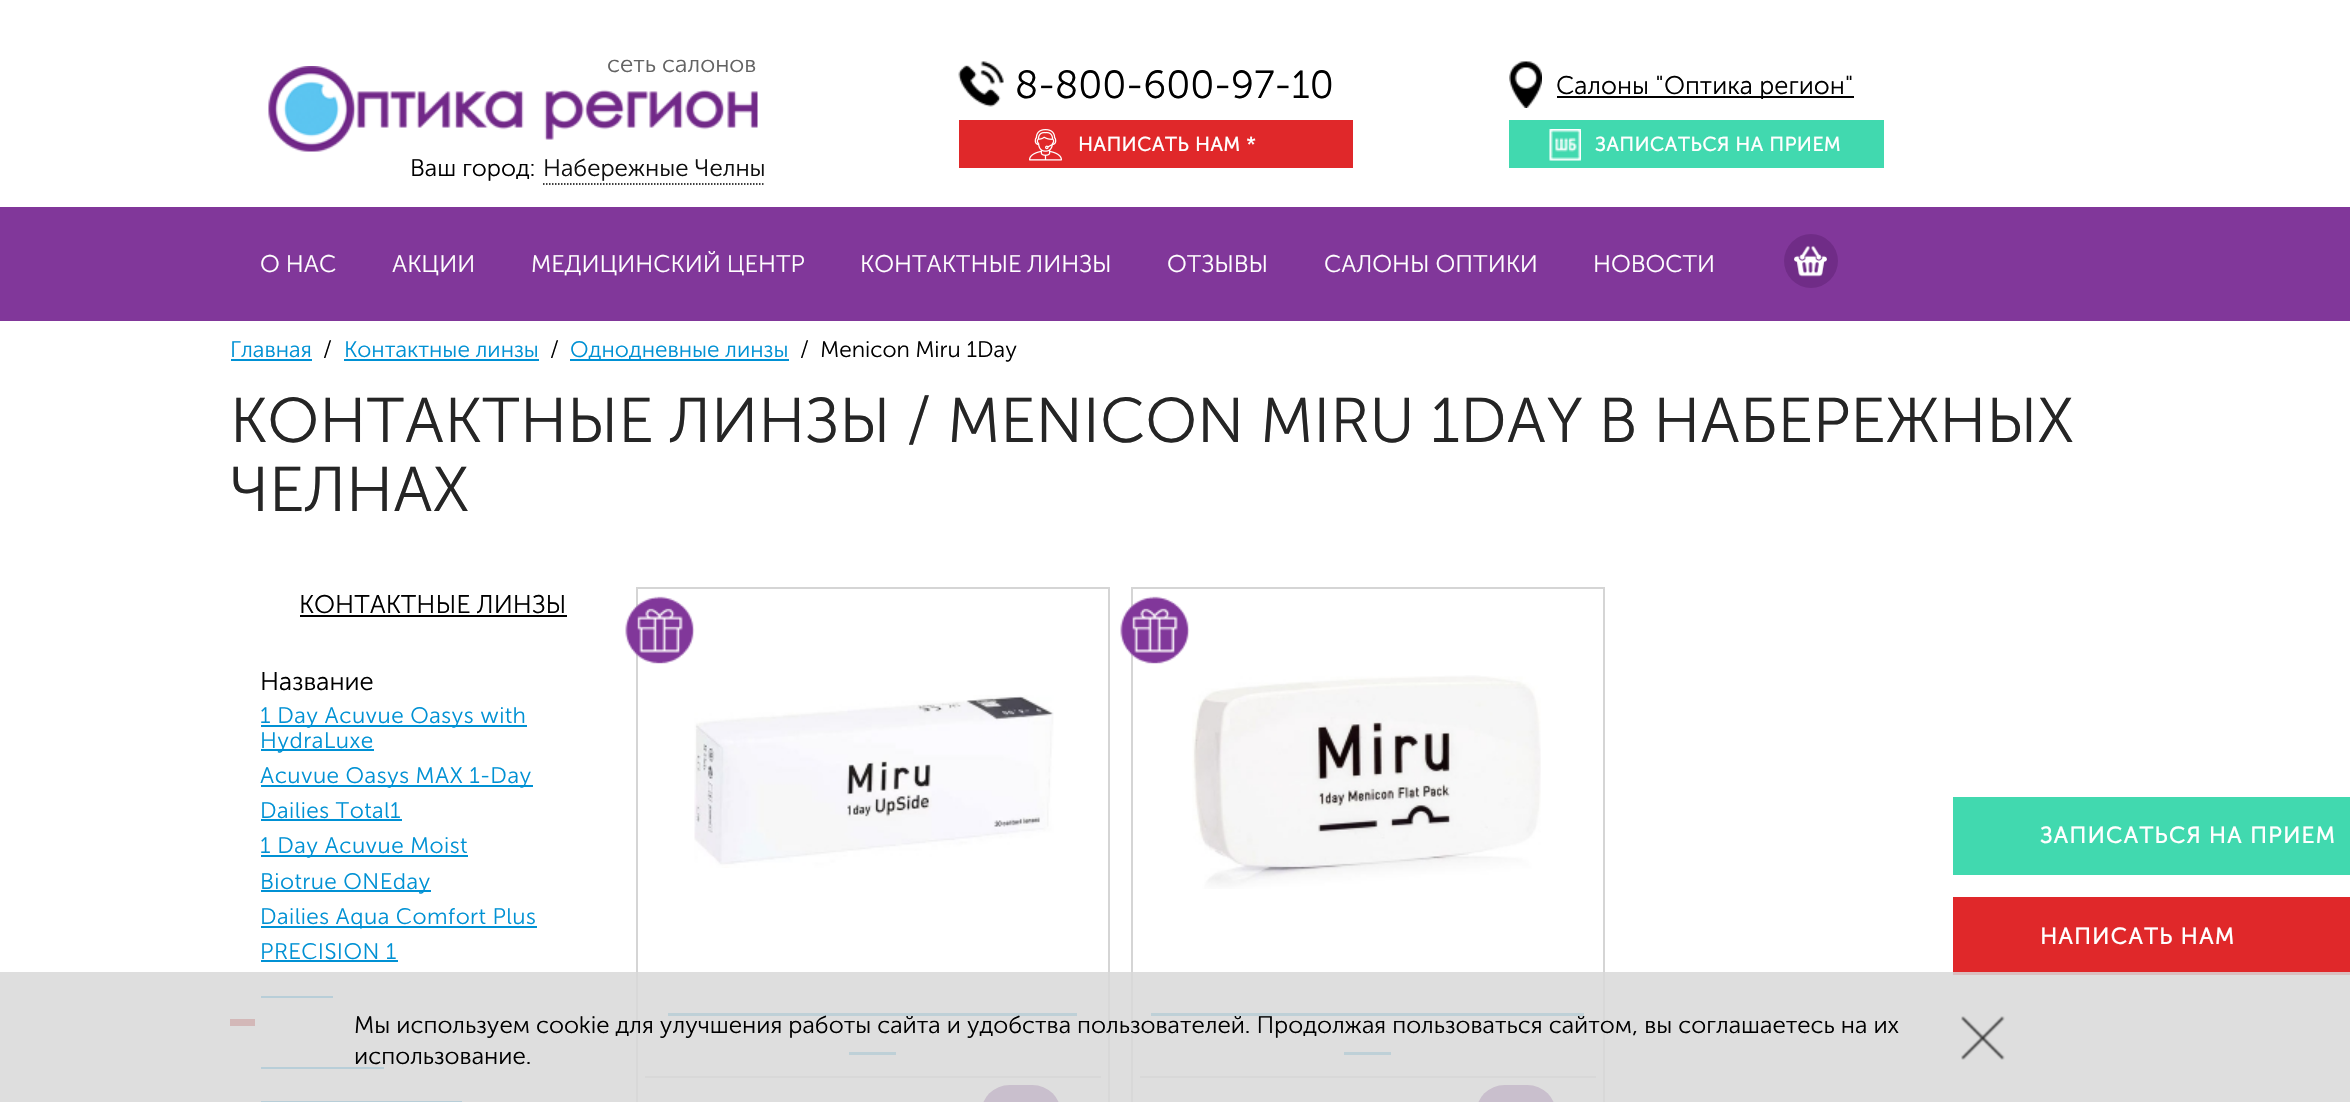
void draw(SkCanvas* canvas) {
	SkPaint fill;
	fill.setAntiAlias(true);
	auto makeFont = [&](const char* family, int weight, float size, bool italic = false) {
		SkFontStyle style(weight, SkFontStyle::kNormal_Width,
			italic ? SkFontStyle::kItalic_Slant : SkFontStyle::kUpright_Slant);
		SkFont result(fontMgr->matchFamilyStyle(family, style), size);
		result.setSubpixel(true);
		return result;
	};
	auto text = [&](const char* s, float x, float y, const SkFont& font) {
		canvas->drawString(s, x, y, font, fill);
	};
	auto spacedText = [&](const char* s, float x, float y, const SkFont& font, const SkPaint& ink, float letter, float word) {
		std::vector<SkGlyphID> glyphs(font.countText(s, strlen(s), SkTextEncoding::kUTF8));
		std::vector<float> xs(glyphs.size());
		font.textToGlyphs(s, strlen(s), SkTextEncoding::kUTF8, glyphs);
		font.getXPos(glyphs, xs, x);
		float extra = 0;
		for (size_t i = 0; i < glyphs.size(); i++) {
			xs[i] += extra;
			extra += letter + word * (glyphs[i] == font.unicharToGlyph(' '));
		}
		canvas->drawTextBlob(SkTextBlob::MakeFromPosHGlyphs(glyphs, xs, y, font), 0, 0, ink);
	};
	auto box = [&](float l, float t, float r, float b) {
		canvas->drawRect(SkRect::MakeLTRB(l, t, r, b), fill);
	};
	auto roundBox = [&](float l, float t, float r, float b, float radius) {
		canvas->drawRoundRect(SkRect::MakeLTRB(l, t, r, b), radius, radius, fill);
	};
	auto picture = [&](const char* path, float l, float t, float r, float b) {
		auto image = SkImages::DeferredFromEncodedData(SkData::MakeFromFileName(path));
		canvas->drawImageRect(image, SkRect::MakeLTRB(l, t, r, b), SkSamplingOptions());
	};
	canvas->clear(0xFFFFFFFF);
	picture("image0.png", 268, 66, 758, 152);
	picture("image1.png", 958, 61, 1004, 107);
	fill.setColor(0xFFE0282A);
	box(959, 120, 1353, 168);
	picture("image2.png", 1029, 129, 1062, 161);
	picture("image3.png", 1509, 61, 1542, 108);
	fill.setColor(0xFF000000);
	box(1557, 96, 1854, 98);
	fill.setColor(0xFF41D9AF);
	box(1509, 120, 1884, 168);
	picture("image4.png", 1549, 129, 1581, 161);
	fill.setStyle(SkPaint::kStroke_Style);
	fill.setStrokeWidth(1.5f);
	fill.setColor(0xFF000000);
	fill.setPathEffect(SkDashPathEffect::Make({{1.5f, 1.5f}}, 0));
	canvas->drawPath(SkPathBuilder().moveTo(543, 184).lineTo(765, 184).detach(), fill);
	fill.setPathEffect(nullptr);
	fill.setStyle(SkPaint::kFill_Style);
	fill.setColor(0xFF81379A);
	box(0, 207, 2350, 321);
	fill.setColor(0xFF702C87);
	canvas->drawCircle(1811, 261, 27, fill);
	picture("image5.png", 1794, 245, 1827, 277);
	fill.setColor(0xFF0091D4);
	box(231, 359, 312, 361);
	box(344, 359, 539, 361);
	box(570, 359, 789, 361);
	fill.setColor(0xFF000000);
	box(300, 615, 567, 617);
	fill.setColor(0xFF0091D4);
	box(261, 725, 527, 727);
	box(261, 749, 374, 751);
	box(261, 785, 533, 787);
	box(261, 819, 402, 821);
	box(261, 855, 468, 857);
	box(261, 890, 431, 892);
	box(261, 926, 537, 928);
	box(261, 960, 398, 962);
	box(261, 996, 333, 998);
	fill.setColor(0xFFB30000);
	box(230, 1019, 255, 1026);
	fill.setColor(0xFF0091D4);
	box(261, 1067, 384, 1069);
	box(261, 1101, 462, 1102);
	fill.setStyle(SkPaint::kStroke_Style);
	fill.setStrokeWidth(2);
	fill.setColor(0xFFD5D5D5);
	canvas->drawRect(SkRect::MakeLTRB(637, 588, 1109, 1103), fill);
	picture("image6.png", 625, 596, 695, 664);
	picture("image7.png", 694, 695, 1054, 868);
	fill.setStyle(SkPaint::kFill_Style);
	fill.setColor(0xFF269CD0);
	box(668, 1013, 1077, 1016);
	box(849, 1052, 896, 1055);
	fill.setColor(0xFFD5D5D5);
	box(645, 1076, 1101, 1078);
	fill.setColor(0xFF702C87);
	roundBox(981, 1085, 1061, 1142, 39.5f);
	fill.setStyle(SkPaint::kStroke_Style);
	fill.setColor(0xFFD5D5D5);
	canvas->drawRect(SkRect::MakeLTRB(1132, 588, 1604, 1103), fill);
	picture("image6.png", 1120, 596, 1190, 664);
	picture("image8.png", 1192, 675, 1541, 889);
	fill.setStyle(SkPaint::kFill_Style);
	fill.setColor(0xFF269CD0);
	box(1151, 1013, 1584, 1016);
	box(1344, 1052, 1391, 1055);
	fill.setColor(0xFFD5D5D5);
	box(1140, 1076, 1596, 1078);
	fill.setColor(0xFF702C87);
	roundBox(1476, 1085, 1556, 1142, 39.5f);
	fill.setColor(0xFF41D9AF);
	box(1953, 797, 2350, 875);
	fill.setColor(0xFFE0282A);
	box(1953, 897, 2350, 975);
	fill.setColor(0xD9D8D8D8);
	box(0, 972, 2350, 1102);
	picture("image9.png", 1961, 1016, 2005, 1060);
	auto font1 = makeFont("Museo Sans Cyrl", 300, 24);
	fill.setColor(0xFF636363);
	text("сеть салонов", 607, 72, font1);
	auto font2 = makeFont("Museo Sans Cyrl", 300, 39);
	fill.setColor(0xFF000000);
	text("8-800-600-97-10", 1015, 98, font2);
	auto font3 = makeFont("Museo Sans Cyrl", 700, 19.5f);
	fill.setColor(0xFFFFFFFF);
	spacedText("НАПИСАТЬ НАМ *", 1078, 151, font3, fill, 0.75f, 0);
	auto font4 = makeFont("Museo Sans Cyrl", 300, 25.5f);
	fill.setColor(0xFF000000);
	text("Салоны \"Оптика регион\"", 1556, 94, font4);
	fill.setColor(0xFFFFFFFF);
	spacedText("ЗАПИСАТЬСЯ НА ПРИЕМ", 1595, 151, font3, fill, 0.75f, 0);
	fill.setColor(0xFF000000);
	text("Ваш город:", 410, 176, font1);
	fill.setColor(0xFF0F0F0F);
	text("Набережные Челны", 543, 176, font1);
	fill.setColor(0xFFFFFFFF);
	text("О НАС", 260, 272, font1);
	text("АКЦИИ", 392, 272, font1);
	text("МЕДИЦИНСКИЙ ЦЕНТР", 531, 272, font1);
	text("КОНТАКТНЫЕ ЛИНЗЫ", 860, 272, font1);
	text("ОТЗЫВЫ", 1167, 272, font1);
	text("САЛОНЫ ОПТИКИ", 1324, 272, font1);
	text("НОВОСТИ", 1593, 272, font1);
	auto font5 = makeFont("Museo Sans Cyrl", 300, 22.5f);
	fill.setColor(0xFF0091D4);
	text("Главная", 230, 357, font5);
	fill.setColor(0xFF000000);
	text("/", 323, 357, font5);
	fill.setColor(0xFF0091D4);
	text("Контактные линзы", 344, 357, font5);
	fill.setColor(0xFF000000);
	text("/", 550, 357, font5);
	fill.setColor(0xFF0091D4);
	text("Однодневные линзы", 570, 357, font5);
	fill.setColor(0xFF000000);
	text("/  Menicon Miru 1Day", 800, 357, font5);
	auto font6 = makeFont("Museo Sans Cyrl", 300, 63);
	fill.setColor(0xFF252525);
	text("КОНТАКТНЫЕ ЛИНЗЫ / MENICON MIRU 1DAY В НАБЕРЕЖНЫХ", 230, 442, font6);
	text("ЧЕЛНАХ", 230, 511, font6);
	fill.setColor(0xFF000000);
	text("КОНТАКТНЫЕ ЛИНЗЫ", 299, 613, font4);
	text("Название", 260, 690, font4);
	fill.setColor(0xFF0091D4);
	spacedText("1 Day Acuvue Oasys with", 260, 723, font5, fill, 0.45f, 0);
	spacedText("HydraLuxe", 260, 748, font5, fill, 0.45f, 0);
	spacedText("Acuvue Oasys MAX 1-Day", 260, 783, font5, fill, 0.45f, 0);
	spacedText("Dailies Total1", 260, 818, font5, fill, 0.45f, 0);
	spacedText("1 Day Acuvue Moist", 260, 853, font5, fill, 0.45f, 0);
	spacedText("Biotrue ONEday", 260, 889, font5, fill, 0.45f, 0);
	spacedText("Dailies Aqua Comfort Plus", 260, 924, font5, fill, 0.45f, 0);
	spacedText("PRECISION 1", 260, 959, font5, fill, 0.45f, 0);
	auto font7 = makeFont("Museo Sans Cyrl", 700, 22.5f);
	fill.setColor(0xFFFFFFFF);
	spacedText("ЗАПИСАТЬСЯ НА ПРИЕМ", 2040, 843, font7, fill, 1.5f, 0);
	spacedText("НАПИСАТЬ НАМ", 2040, 944, font7, fill, 1.5f, 0);
	fill.setColor(0xFF000000);
	text("Мы используем cookie для улучшения работы сайта и удобства пользователей. Продолжая пользоваться сайтом, вы соглашаетесь на их", 354, 1033, font1);
	text("использование.", 354, 1064, font1);
}
